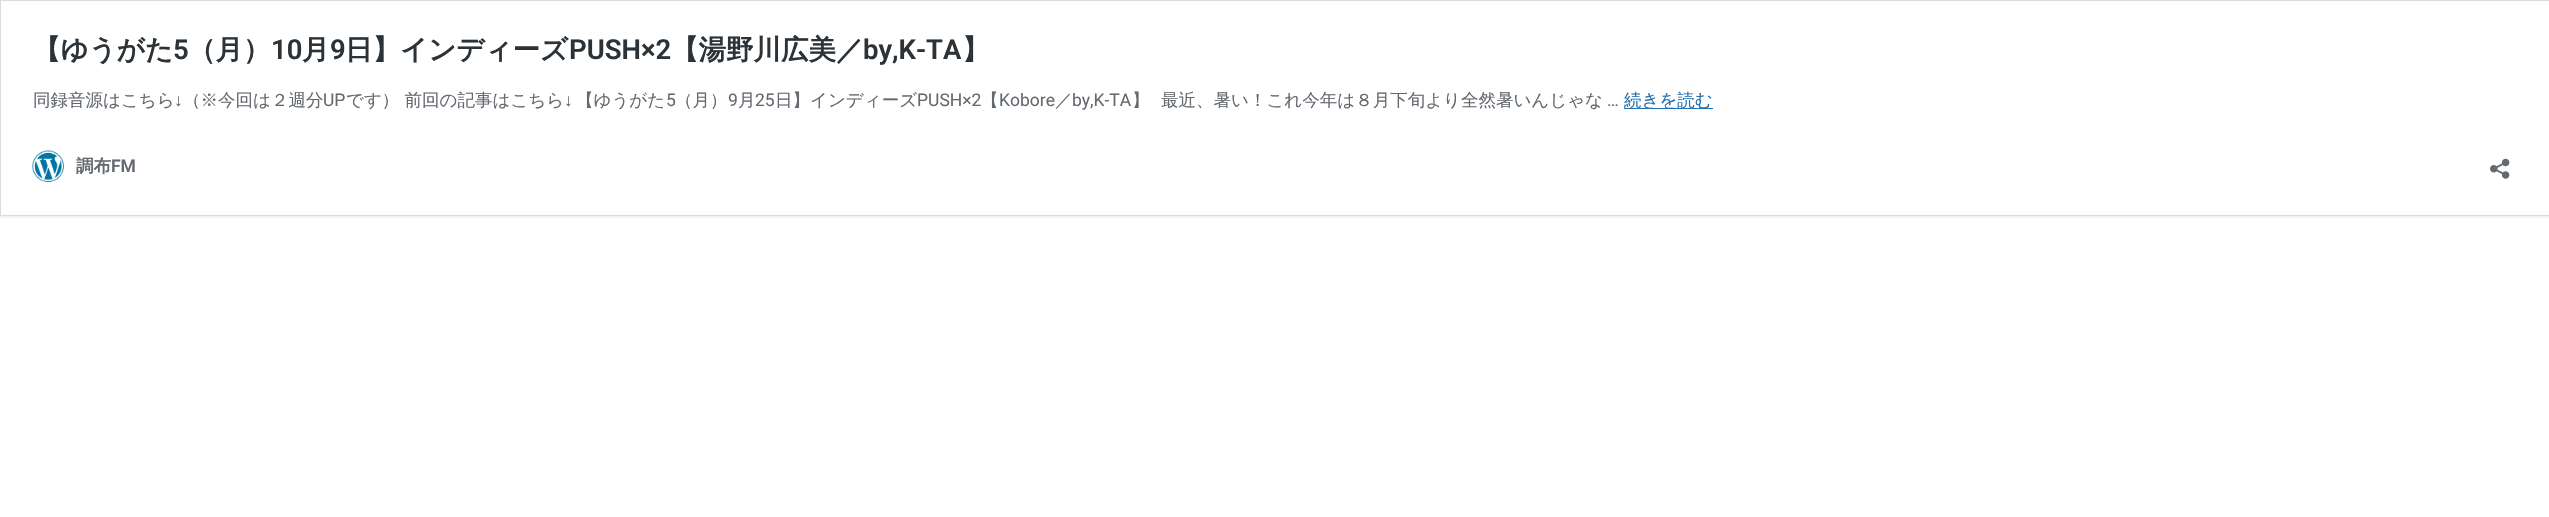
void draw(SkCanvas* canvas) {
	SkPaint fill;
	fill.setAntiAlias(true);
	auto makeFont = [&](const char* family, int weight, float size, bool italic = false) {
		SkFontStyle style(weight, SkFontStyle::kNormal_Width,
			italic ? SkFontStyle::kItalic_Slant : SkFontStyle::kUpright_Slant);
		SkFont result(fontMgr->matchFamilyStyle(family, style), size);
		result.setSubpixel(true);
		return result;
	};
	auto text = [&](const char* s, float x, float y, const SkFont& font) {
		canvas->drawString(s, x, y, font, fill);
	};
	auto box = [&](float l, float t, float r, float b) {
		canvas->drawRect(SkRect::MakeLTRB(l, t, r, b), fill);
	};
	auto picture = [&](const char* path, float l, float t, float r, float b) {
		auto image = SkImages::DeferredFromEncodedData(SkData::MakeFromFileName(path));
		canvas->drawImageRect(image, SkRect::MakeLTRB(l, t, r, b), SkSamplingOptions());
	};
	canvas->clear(0xFFFFFFFF);
	canvas->save();
	canvas->clipRect(SkRect::MakeLTRB(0, 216, 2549, 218));
	fill.setColor(0x0D000000);
	fill.setMaskFilter(SkMaskFilter::MakeBlur(kNormal_SkBlurStyle, 0.5f));
	canvas->drawRect(SkRect::MakeLTRB(0, 1, 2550, 218), fill);
	fill.setMaskFilter(nullptr);
	canvas->restore();
	fill.setStyle(SkPaint::kStroke_Style);
	fill.setStrokeWidth(1);
	fill.setColor(0xFFDCDCDE);
	canvas->drawRect(SkRect::MakeLTRB(0.5f, 0.5f, 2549.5f, 215.5f), fill);
	fill.setStyle(SkPaint::kFill_Style);
	fill.setColor(0xFF2271B1);
	box(1624, 108, 1713, 109);
	picture("image0.png", 32, 150, 64, 182);
	picture("image1.png", 2490, 158, 2510, 179);
	auto font1 = makeFont("WenQuanYi Zen Hei", 700, 27.5f);
	fill.setColor(0xFF2C3338);
	text("【ゆうがた", 33, 59, font1);
	auto font2 = makeFont("Roboto", 600, 27.5f);
	text("5", 173, 59, font2);
	text("（月）", 188, 59, font1);
	text("10", 271, 59, font2);
	text("月", 302, 59, font1);
	text("9", 330, 59, font2);
	text("日】インディーズ", 345, 59, font1);
	text("PUSH×2", 569, 59, font2);
	text("【湯野川広美／", 671, 59, font1);
	text("by,K-TA", 863, 59, font2);
	text("】", 962, 59, font1);
	auto font3 = makeFont("WenQuanYi Zen Hei", 500, 17.5f);
	fill.setColor(0xFF646970);
	text("同録音源はこちら", 33, 106, font3);
	auto font4 = makeFont("Liberation Sans", 400, 17.5f);
	text("↓", 174, 106, font4);
	text("（※今回は２週分", 183, 106, font3);
	auto font5 = makeFont("Roboto", 400, 17.5f);
	text("UP", 323, 106, font5);
	text("です） 前回の記事はこちら", 346, 106, font3);
	text("↓", 564, 106, font4);
	text("【ゆうがた", 576, 106, font3);
	text("5", 666, 106, font5);
	text("（月）", 675, 106, font3);
	text("9", 728, 106, font5);
	text("月", 738, 106, font3);
	text("25", 755, 106, font5);
	text("日】インディーズ", 775, 106, font3);
	text("PUSH×2", 917, 106, font5);
	text("【", 981, 106, font3);
	text("Kobore", 999, 106, font5);
	text("／", 1055, 106, font3);
	text("by,K-TA", 1072, 106, font5);
	text("】", 1132, 106, font3);
	text("最近、暑い！これ今年は８月下旬より全然暑いんじゃな", 1161, 106, font3);
	text("…", 1607, 106, font5);
	fill.setColor(0xFF2271B1);
	text("続きを読む", 1624, 106, font3);
	auto font6 = makeFont("WenQuanYi Zen Hei", 700, 17.5f);
	fill.setColor(0xFF646970);
	text("調布", 76, 172, font6);
	auto font7 = makeFont("Roboto", 600, 17.5f);
	text("FM", 111, 172, font7);
}
